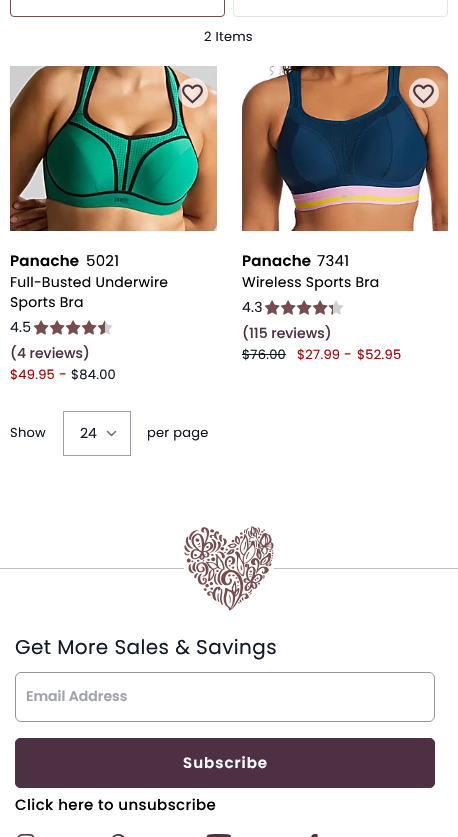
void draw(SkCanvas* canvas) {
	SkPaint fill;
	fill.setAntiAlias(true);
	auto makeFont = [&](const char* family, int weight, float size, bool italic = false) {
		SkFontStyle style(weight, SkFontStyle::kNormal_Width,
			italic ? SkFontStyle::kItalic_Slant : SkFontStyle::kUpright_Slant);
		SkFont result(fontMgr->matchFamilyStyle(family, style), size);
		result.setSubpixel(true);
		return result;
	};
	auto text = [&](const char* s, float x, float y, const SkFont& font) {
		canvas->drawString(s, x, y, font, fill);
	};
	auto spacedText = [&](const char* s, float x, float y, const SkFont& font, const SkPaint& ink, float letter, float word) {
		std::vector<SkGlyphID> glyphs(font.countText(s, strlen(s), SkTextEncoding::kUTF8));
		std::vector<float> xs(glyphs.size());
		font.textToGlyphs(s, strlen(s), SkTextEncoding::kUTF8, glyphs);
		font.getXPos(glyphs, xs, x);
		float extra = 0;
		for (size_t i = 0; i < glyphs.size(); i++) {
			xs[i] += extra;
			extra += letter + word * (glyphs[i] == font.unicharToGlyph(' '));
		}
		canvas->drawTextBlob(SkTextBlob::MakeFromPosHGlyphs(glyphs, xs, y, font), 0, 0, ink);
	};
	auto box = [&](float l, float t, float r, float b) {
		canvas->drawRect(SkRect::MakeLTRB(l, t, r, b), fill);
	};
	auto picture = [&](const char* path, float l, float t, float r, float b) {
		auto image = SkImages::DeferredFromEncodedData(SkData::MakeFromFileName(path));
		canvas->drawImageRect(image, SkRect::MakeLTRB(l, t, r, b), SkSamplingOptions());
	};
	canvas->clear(0xFFFFFFFF);
	fill.setStyle(SkPaint::kStroke_Style);
	fill.setStrokeWidth(1);
	fill.setColor(0xFF764C4C);
	canvas->drawRoundRect(SkRect::MakeLTRB(10.5f, -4.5f, 224.5f, 16.5f), 3.5f, 3.5f, fill);
	fill.setColor(0xFFE7E3DF);
	canvas->drawRoundRect(SkRect::MakeLTRB(233.5f, -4.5f, 447.5f, 16.5f), 3.5f, 3.5f, fill);
	picture("image0.png", 10, 66, 217, 231);
	fill.setStyle(SkPaint::kFill_Style);
	fill.setColor(0xB3FFFFFF);
	canvas->drawCircle(193, 93, 15, fill);
	picture("image1.png", 182, 84, 203, 104);
	picture("image3.png", 34, 320, 113, 335);
	picture("image2.png", 33, 320, 105, 335);
	picture("image4.png", 242, 66, 448, 231);
	canvas->drawCircle(424, 93, 15, fill);
	picture("image5.png", 413, 84, 434, 104);
	picture("image3.png", 265, 300, 344, 315);
	picture("image6.png", 264, 300, 333, 315);
	fill.setColor(0xFF111827);
	box(242, 354, 286, 355);
	fill.setStyle(SkPaint::kStroke_Style);
	fill.setStrokeWidth(1.6f);
	fill.setStrokeCap(SkPaint::kRound_Cap);
	fill.setStrokeJoin(SkPaint::kRound_Join);
	fill.setColor(0xFF6B7280);
	canvas->drawPath(SkPathBuilder().moveTo(107.5f, 431.5f).lineTo(111.5f, 435.5f).lineTo(115.5f, 431.5f).detach(), fill);
	fill.setStrokeWidth(1);
	fill.setStrokeCap(SkPaint::kButt_Cap);
	fill.setStrokeJoin(SkPaint::kMiter_Join);
	fill.setColor(0xFF9CA3AF);
	canvas->drawRect(SkRect::MakeLTRB(63.5f, 411.5f, 130.5f, 455.5f), fill);
	fill.setStyle(SkPaint::kFill_Style);
	fill.setColor(0xFFBFBFBF);
	box(0, 568, 458, 569);
	fill.setColor(0xFFFFFFFF);
	box(184, 568, 274, 569);
	picture("image7.png", 184, 526, 274, 611);
	fill.setStyle(SkPaint::kStroke_Style);
	fill.setColor(0xFF96939A);
	canvas->drawRoundRect(SkRect::MakeLTRB(15.5f, 672.5f, 434.5f, 721.5f), 5.5f, 5.5f, fill);
	fill.setStyle(SkPaint::kFill_Style);
	fill.setColor(0xFF4D3042);
	canvas->drawRoundRect(SkRect::MakeLTRB(15.5f, 738.5f, 434.5f, 787.5f), 4.5f, 4.5f, fill);
	fill.setStyle(SkPaint::kStroke_Style);
	canvas->drawRoundRect(SkRect::MakeLTRB(15.5f, 738.5f, 434.5f, 787.5f), 4.5f, 4.5f, fill);
	picture("image8.png", 17, 834, 35, 837);
	picture("image9.png", 112, 834, 125, 837);
	picture("image10.png", 206, 834, 231, 837);
	picture("image11.png", 311, 834, 318, 837);
	auto font1 = makeFont("Poppins", 400, 13);
	fill.setStyle(SkPaint::kFill_Style);
	fill.setColor(0xFF111827);
	spacedText("2 Items", 204, 41, font1, fill, 0.25f, 0);
	auto font2 = makeFont("Poppins", 600, 15);
	fill.setColor(0xFF000000);
	spacedText("Panache", 10, 266, font2, fill, 0.25f, 0);
	auto font3 = makeFont("Poppins", 400, 15);
	spacedText("5021", 86, 266, font3, fill, 0.25f, 0);
	auto font4 = makeFont("Poppins", 400, 14);
	spacedText("Full-Busted Underwire", 10, 287, font4, fill, 0.25f, 0);
	spacedText("Sports Bra", 10, 307, font4, fill, 0.25f, 0);
	fill.setColor(0xFF111827);
	spacedText("4.5", 10, 332, font4, fill, 0.25f, 0);
	auto font5 = makeFont("Poppins", 500, 14);
	fill.setColor(0xFF4D3042);
	text("(4 reviews)", 10, 358, font5);
	fill.setColor(0xFFAD0000);
	spacedText("$49.95", 10, 379, font1, fill, 0.25f, 0);
	spacedText("-", 59, 379, font4, fill, 0.25f, 0);
	fill.setColor(0xFF111827);
	spacedText("$84.00", 71, 379, font1, fill, 0.25f, 0);
	fill.setColor(0xFF000000);
	spacedText("Panache", 242, 266, font2, fill, 0.25f, 0);
	spacedText("7341", 317, 266, font3, fill, 0.25f, 0);
	spacedText("Wireless Sports Bra", 242, 287, font4, fill, 0.25f, 0);
	fill.setColor(0xFF111827);
	spacedText("4.3", 242, 312, font4, fill, 0.25f, 0);
	fill.setColor(0xFF4D3042);
	text("(115 reviews)", 242, 338, font5);
	fill.setColor(0xFF111827);
	spacedText("$76.00", 242, 359, font1, fill, 0.25f, 0);
	fill.setColor(0xFFAD0000);
	spacedText("$27.99", 297, 359, font1, fill, 0.25f, 0);
	spacedText("-", 344, 359, font4, fill, 0.25f, 0);
	spacedText("$52.95", 357, 359, font1, fill, 0.25f, 0);
	fill.setColor(0xFF111827);
	spacedText("Show", 10, 437, font1, fill, 0.25f, 0);
	text("24", 80, 438, font4);
	spacedText("per page", 147, 437, font1, fill, 0.25f, 0);
	auto font6 = makeFont("Poppins", 400, 20);
	spacedText("Get More Sales & Savings", 15, 654, font6, fill, 0.4f, 0);
	auto font7 = makeFont("Poppins", 600, 14);
	fill.setColor(0xFFA0A3A9);
	text("Email Address", 26, 701, font7);
	fill.setColor(0xFFFFFFFF);
	spacedText("Subscribe", 183, 768, font2, fill, 1, 0);
	auto font8 = makeFont("Poppins", 500, 15);
	fill.setColor(0xFF000000);
	spacedText("Click here to unsubscribe", 15, 810, font8, fill, 0.4f, 0);
}
